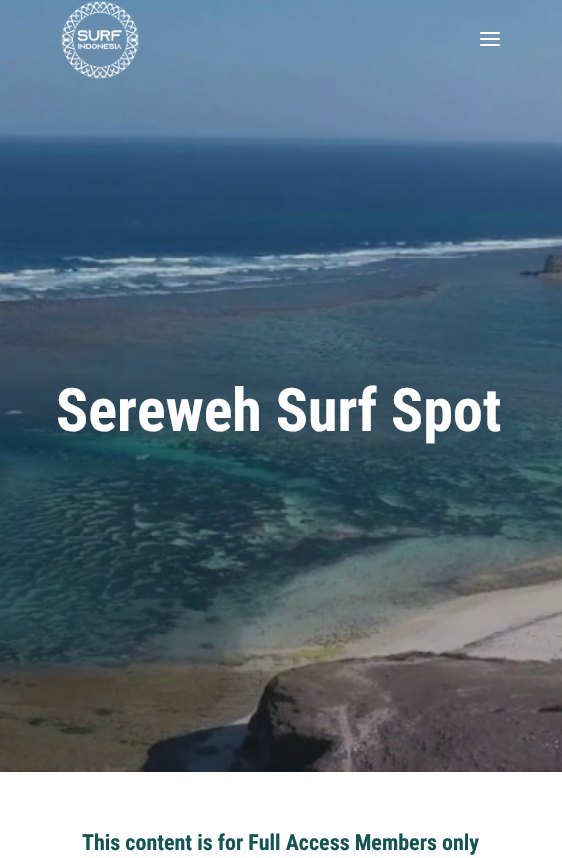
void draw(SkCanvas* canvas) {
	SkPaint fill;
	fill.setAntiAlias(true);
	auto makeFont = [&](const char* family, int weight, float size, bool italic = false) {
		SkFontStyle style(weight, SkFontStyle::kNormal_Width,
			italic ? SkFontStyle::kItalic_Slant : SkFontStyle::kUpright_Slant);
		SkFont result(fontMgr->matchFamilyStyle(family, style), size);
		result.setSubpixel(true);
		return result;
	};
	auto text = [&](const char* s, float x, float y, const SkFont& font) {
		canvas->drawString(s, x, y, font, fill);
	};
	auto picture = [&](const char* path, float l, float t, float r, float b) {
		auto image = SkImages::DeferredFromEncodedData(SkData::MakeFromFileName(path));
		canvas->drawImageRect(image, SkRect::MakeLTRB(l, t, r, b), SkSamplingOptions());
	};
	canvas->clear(0xFFFFFFFF);
	picture("image2.png", 0, 0, 562, 772);
	picture("image0.png", 61, 1, 139, 79);
	picture("image1.png", 480, 32, 500, 46);
	auto font1 = makeFont("Roboto Condensed", 700, 60);
	fill.setColor(0xFFFFFFFF);
	text("Sereweh Surf Spot", 56, 431, font1);
	auto font2 = makeFont("Roboto Condensed", 700, 22);
	fill.setColor(0xFF155453);
	text("This content is for Full Access Members only", 82, 850, font2);
}
